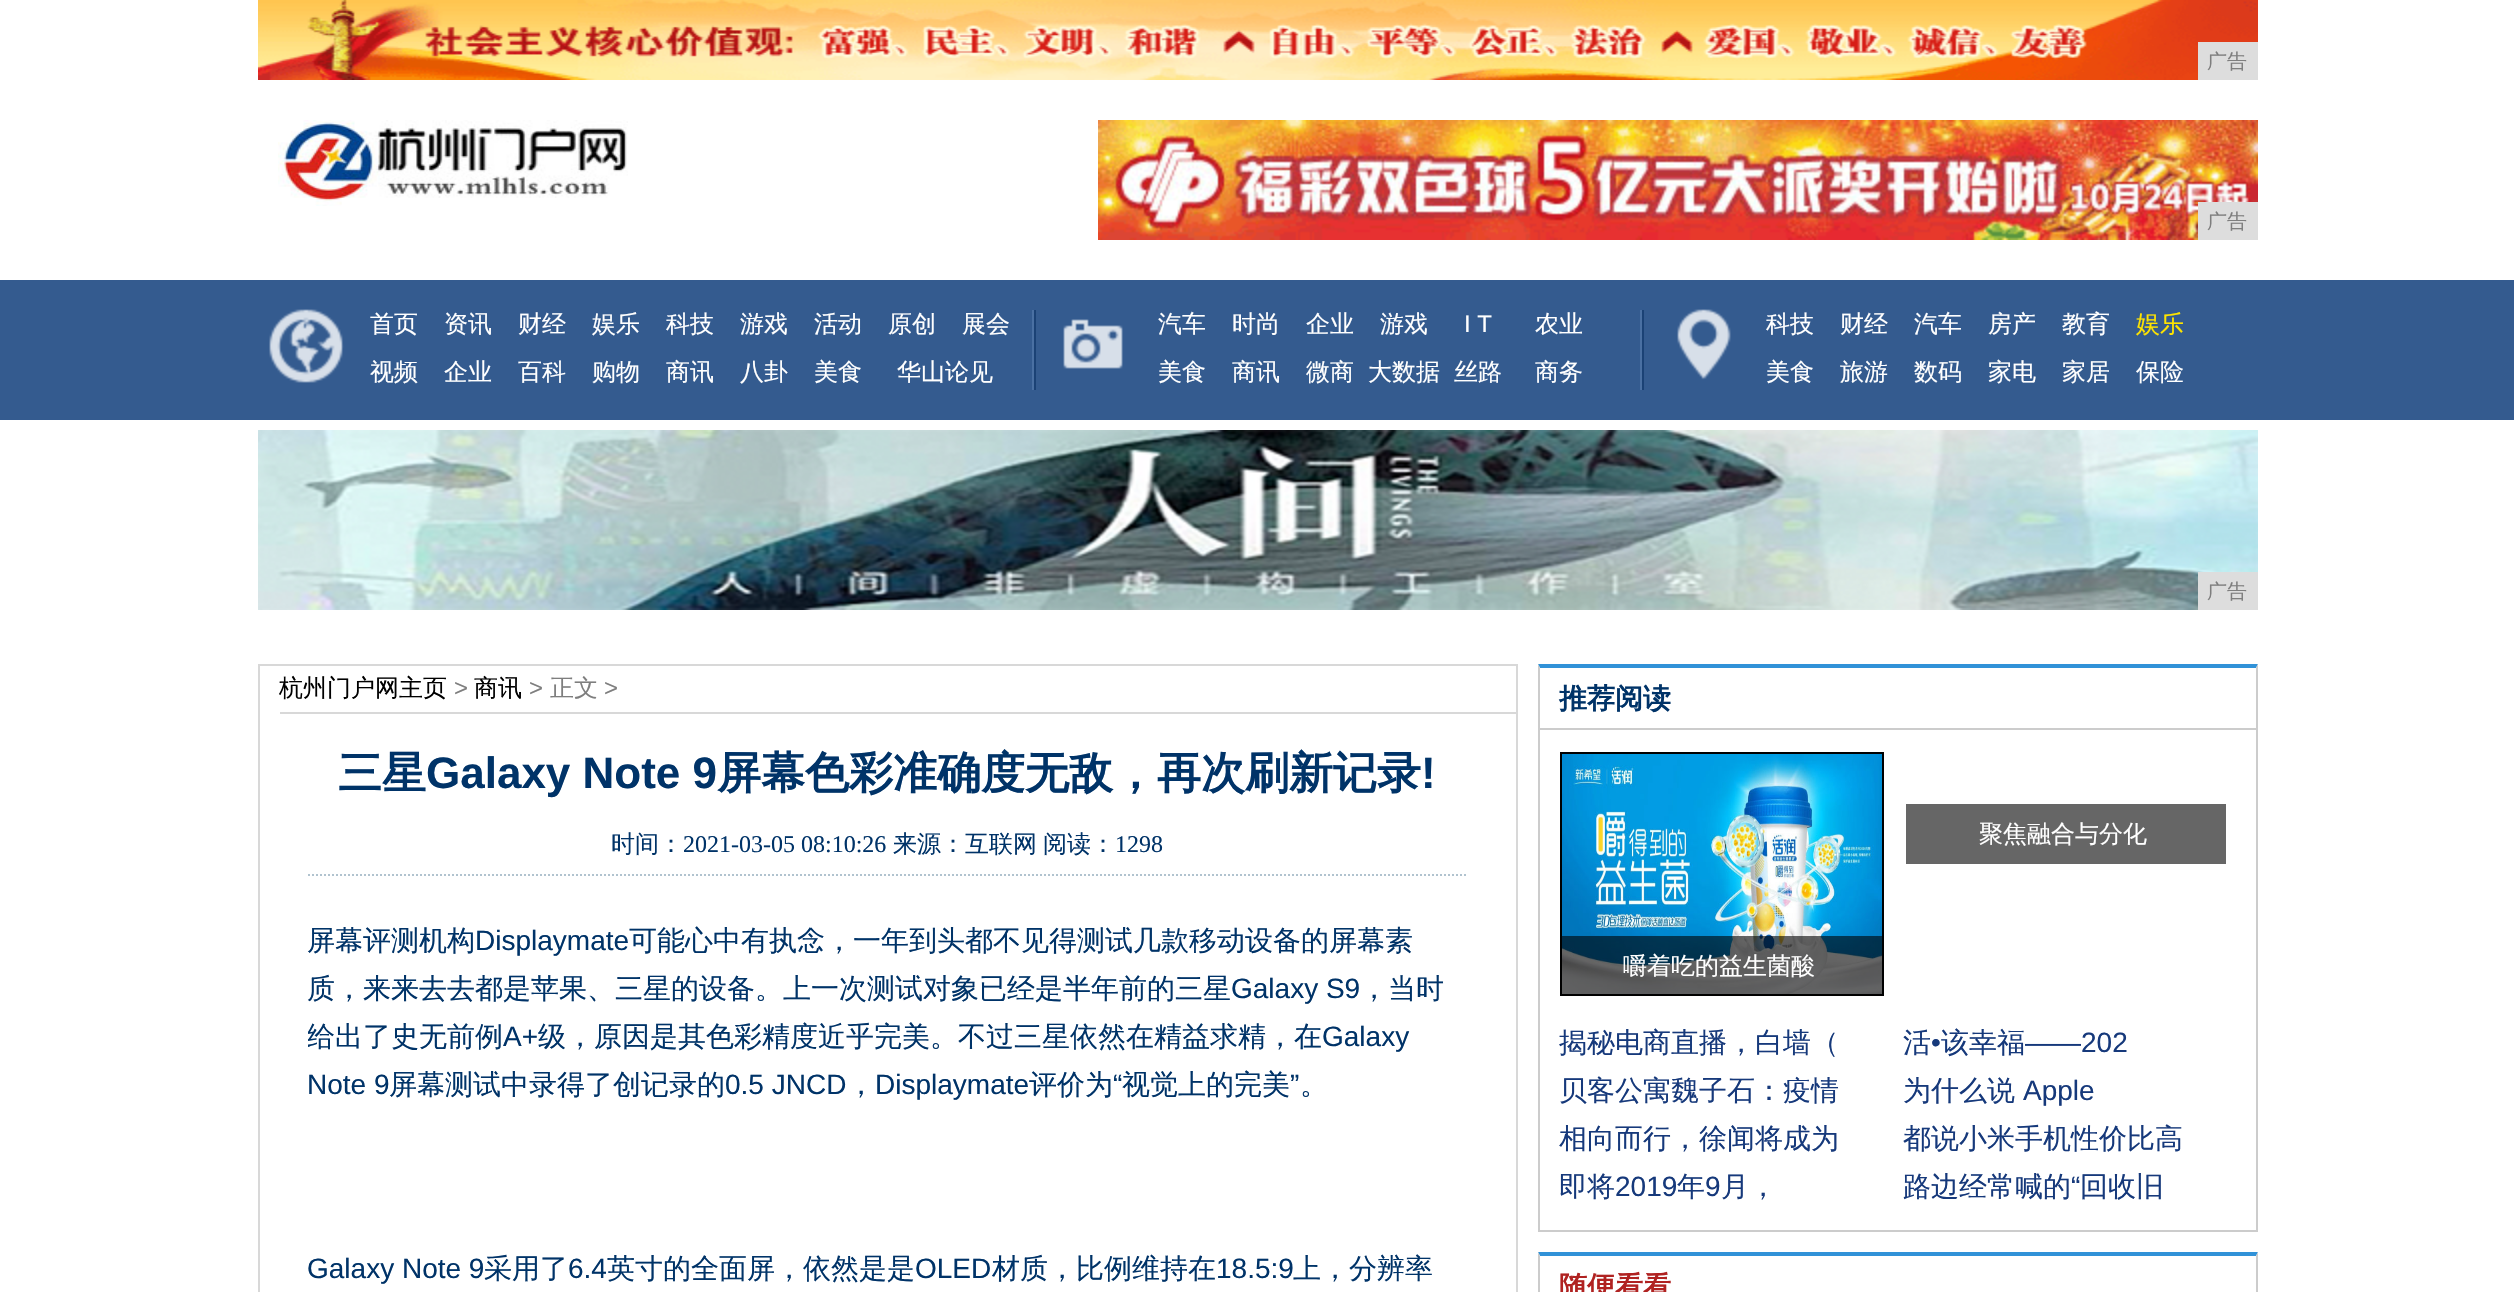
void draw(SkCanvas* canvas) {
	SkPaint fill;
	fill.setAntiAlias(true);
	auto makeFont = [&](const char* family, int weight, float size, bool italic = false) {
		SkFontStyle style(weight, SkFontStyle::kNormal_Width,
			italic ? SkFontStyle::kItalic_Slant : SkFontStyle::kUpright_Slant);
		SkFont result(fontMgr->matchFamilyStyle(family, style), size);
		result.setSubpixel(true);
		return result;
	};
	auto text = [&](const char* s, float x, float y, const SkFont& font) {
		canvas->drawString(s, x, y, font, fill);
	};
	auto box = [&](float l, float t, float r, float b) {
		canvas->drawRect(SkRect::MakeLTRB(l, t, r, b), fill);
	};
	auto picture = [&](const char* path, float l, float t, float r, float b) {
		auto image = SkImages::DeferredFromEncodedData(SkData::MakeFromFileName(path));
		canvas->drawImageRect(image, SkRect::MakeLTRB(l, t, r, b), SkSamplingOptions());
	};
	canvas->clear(0xFFFFFFFF);
	picture("image0.png", 258, 0, 2258, 80);
	fill.setColor(0xFFDDDDDD);
	box(2198, 42, 2258, 80);
	picture("image1.png", 278, 120, 628, 206);
	picture("image2.png", 1098, 120, 2258, 240);
	box(2198, 202, 2258, 240);
	fill.setColor(0xFF345B8F);
	box(0, 280, 2514, 420);
	picture("image3.png", 269, 309, 344, 383);
	fill.setColor(0xFF4A70A2);
	box(1032, 310, 1034, 390);
	fill.setColor(0xFF1B4275);
	box(1034, 310, 1036, 390);
	picture("image4.png", 1063, 319, 1123, 369);
	fill.setColor(0xFF4A70A2);
	box(1640, 310, 1642, 390);
	fill.setColor(0xFF1B4275);
	box(1642, 310, 1644, 390);
	picture("image5.png", 1677, 309, 1731, 380);
	picture("image6.png", 258, 430, 2258, 610);
	fill.setColor(0xFFDDDDDD);
	box(2198, 572, 2258, 610);
	fill.setStyle(SkPaint::kStroke_Style);
	fill.setStrokeWidth(2);
	fill.setColor(0xFFD8D8D8);
	canvas->drawRect(SkRect::MakeLTRB(259, 665, 1517, 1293), fill);
	fill.setStyle(SkPaint::kFill_Style);
	box(280, 712, 1516, 714);
	fill.setStyle(SkPaint::kStroke_Style);
	fill.setColor(0xFFB1C3CF);
	fill.setPathEffect(SkDashPathEffect::Make({{2, 2}}, 0));
	canvas->drawPath(SkPathBuilder().moveTo(308, 875).lineTo(1468, 875).detach(), fill);
	fill.setPathEffect(nullptr);
	fill.setStyle(SkPaint::kFill_Style);
	fill.setColor(0xFF3192D8);
	canvas->drawPath(SkPathBuilder().moveTo(1538, 664).lineTo(2258, 664).lineTo(2256, 668).lineTo(1540, 668).close().detach(), fill);
	fill.setColor(0xFFCCCCCC);
	canvas->drawPath(SkPathBuilder().moveTo(2258, 664).lineTo(2258, 1232).lineTo(2256, 1230).lineTo(2256, 668).close().detach(), fill);
	box(1538, 1230, 2258, 1232);
	canvas->drawPath(SkPathBuilder().moveTo(1538, 1232).lineTo(1538, 664).lineTo(1540, 668).lineTo(1540, 1230).close().detach(), fill);
	box(1540, 728, 2256, 730);
	fill.setColor(0xFF666666);
	box(1906, 804, 2226, 864);
	fill.setStyle(SkPaint::kStroke_Style);
	fill.setColor(0xFF000000);
	canvas->drawRect(SkRect::MakeLTRB(1561, 753, 1883, 995), fill);
	picture("image7.png", 1562, 754, 1882, 994);
	fill.setStyle(SkPaint::kFill_Style);
	fill.setColor(0x99000000);
	box(1562, 936, 1882, 994);
	fill.setColor(0xFF3192D8);
	canvas->drawPath(SkPathBuilder().moveTo(1538, 1252).lineTo(2258, 1252).lineTo(2256, 1256).lineTo(1540, 1256).close().detach(), fill);
	fill.setColor(0xFFCCCCCC);
	canvas->drawPath(SkPathBuilder().moveTo(2258, 1252).lineTo(2258, 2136).lineTo(2256, 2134).lineTo(2256, 1256).close().detach(), fill);
	canvas->drawPath(SkPathBuilder().moveTo(1538, 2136).lineTo(1538, 1252).lineTo(1540, 1256).lineTo(1540, 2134).close().detach(), fill);
	auto font1 = makeFont("WenQuanYi Zen Hei", 500, 20);
	fill.setColor(0xFF7E7E7E);
	text("广告", 2207, 68, font1);
	text("广告", 2207, 228, font1);
	auto font2 = makeFont("WenQuanYi Zen Hei", 500, 24);
	fill.setColor(0xFFFFFFFF);
	text("首页", 370, 332, font2);
	text("资讯", 444, 332, font2);
	text("财经", 518, 332, font2);
	text("娱乐", 592, 332, font2);
	text("科技", 666, 332, font2);
	text("游戏", 740, 332, font2);
	text("活动", 814, 332, font2);
	text("原创", 888, 332, font2);
	text("展会", 962, 332, font2);
	text("视频", 370, 380, font2);
	text("企业", 444, 380, font2);
	text("百科", 518, 380, font2);
	text("购物", 592, 380, font2);
	text("商讯", 666, 380, font2);
	text("八卦", 740, 380, font2);
	text("美食", 814, 380, font2);
	text("华山论见", 897, 380, font2);
	text("汽车", 1158, 332, font2);
	text("时尚", 1232, 332, font2);
	text("企业", 1306, 332, font2);
	text("游戏", 1380, 332, font2);
	auto font3 = makeFont("Liberation Sans", 400, 24);
	text("I T", 1464, 332, font3);
	text("农业", 1535, 332, font2);
	text("美食", 1158, 380, font2);
	text("商讯", 1232, 380, font2);
	text("微商", 1306, 380, font2);
	text("大数据", 1368, 380, font2);
	text("丝路", 1454, 380, font2);
	text("商务", 1535, 380, font2);
	text("科技", 1766, 332, font2);
	text("财经", 1840, 332, font2);
	text("汽车", 1914, 332, font2);
	text("房产", 1988, 332, font2);
	text("教育", 2062, 332, font2);
	fill.setColor(0xFFFFE400);
	text("娱乐", 2136, 332, font2);
	fill.setColor(0xFFFFFFFF);
	text("美食", 1766, 380, font2);
	text("旅游", 1840, 380, font2);
	text("数码", 1914, 380, font2);
	text("家电", 1988, 380, font2);
	text("家居", 2062, 380, font2);
	text("保险", 2136, 380, font2);
	fill.setColor(0xFF7E7E7E);
	text("广告", 2207, 598, font1);
	fill.setColor(0xFF000000);
	text("杭州门户网主页", 279, 696, font2);
	fill.setColor(0xFF7E7E7E);
	text(">", 454, 696, font3);
	fill.setColor(0xFF000000);
	text("商讯", 474, 696, font2);
	fill.setColor(0xFF7E7E7E);
	text(">", 529, 696, font3);
	text("正文", 550, 696, font2);
	text(">", 604, 696, font3);
	auto font4 = makeFont("WenQuanYi Zen Hei", 700, 44);
	fill.setColor(0xFF003368);
	text("三星", 338, 788, font4);
	auto font5 = makeFont("Liberation Sans", 700, 44);
	text("Galaxy Note 9", 426, 788, font5);
	text("屏幕色彩准确度无敌，再次刷新记录", 717, 788, font4);
	text("!", 1421, 788, font5);
	text("时间：", 611, 852, font2);
	auto font6 = makeFont("Liberation Serif", 400, 24);
	text("2021-03-05 08:10:26", 683, 852, font6);
	text("来源：互联网", 893, 852, font2);
	text("阅读：", 1043, 852, font2);
	text("1298", 1115, 852, font6);
	auto font7 = makeFont("WenQuanYi Zen Hei", 500, 28);
	text("屏幕评测机构", 307, 950, font7);
	auto font8 = makeFont("Liberation Sans", 400, 28);
	text("Displaymate", 475, 950, font8);
	text("可能心中有执念，一年到头都不见得测试几款移动设备的屏幕素", 629, 950, font7);
	text("质，来来去去都是苹果、三星的设备。上一次测试对象已经是半年前的三星", 307, 998, font7);
	text("Galaxy S9", 1231, 998, font8);
	text("，当时", 1360, 998, font7);
	canvas->save();
	canvas->clipRect(SkRect::MakeLTRB(308, 916, 1468, 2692));
	text("给出了史无前例", 307, 1046, font7);
	canvas->restore();
	text("A+", 503, 1046, font8);
	text("级，原因是其色彩精度近乎完美。不过三星依然在精益求精，在", 538, 1046, font7);
	text("Galaxy", 1322, 1046, font8);
	text("Note 9", 307, 1094, font8);
	text("屏幕测试中录得了创记录的", 389, 1094, font7);
	text("0.5 JNCD", 725, 1094, font8);
	text("Displaymate", 875, 1094, font8);
	text("评价为", 1029, 1094, font7);
	text("“", 1113, 1094, font8);
	text("视觉上的完美", 1122, 1094, font7);
	text("”", 1290, 1094, font8);
	text("，", 847, 1094, font7);
	text("。", 1300, 1094, font7);
	text("Galaxy Note 9", 307, 1278, font8);
	text("采用了", 484, 1278, font7);
	text("6.4", 568, 1278, font8);
	text("英寸的全面屏，依然是是", 607, 1278, font7);
	text("OLED", 915, 1278, font8);
	text("材质，比例维持在", 992, 1278, font7);
	text("18.5:9", 1216, 1278, font8);
	text("上，分辨率", 1293, 1278, font7);
	auto font9 = makeFont("WenQuanYi Zen Hei", 700, 28);
	text("推荐阅读", 1559, 708, font9);
	fill.setColor(0xFFFFFFFF);
	text("聚焦融合与分化", 1979, 842, font2);
	text("嚼着吃的益生菌酸", 1623, 974, font2);
	fill.setColor(0xFF16397B);
	text("揭秘电商直播，白墙（", 1559, 1052, font7);
	text("活", 1903, 1052, font7);
	text("•", 1931, 1052, font8);
	text("该幸福", 1941, 1052, font7);
	text("——202", 2025, 1052, font8);
	text("贝客公寓魏子石：疫情", 1559, 1100, font7);
	text("为什么说", 1903, 1100, font7);
	text("Apple", 2023, 1100, font8);
	text("相向而行，徐闻将成为", 1559, 1148, font7);
	text("都说小米手机性价比高", 1903, 1148, font7);
	text("即将", 1559, 1196, font7);
	text("2019", 1615, 1196, font8);
	text("年", 1677, 1196, font7);
	text("9", 1705, 1196, font8);
	text("月，", 1721, 1196, font7);
	text("路边经常喊的", 1903, 1196, font7);
	text("“", 2071, 1196, font8);
	text("回收旧", 2080, 1196, font7);
	fill.setColor(0xFFB02221);
	text("随便看看", 1559, 1296, font9);
}
